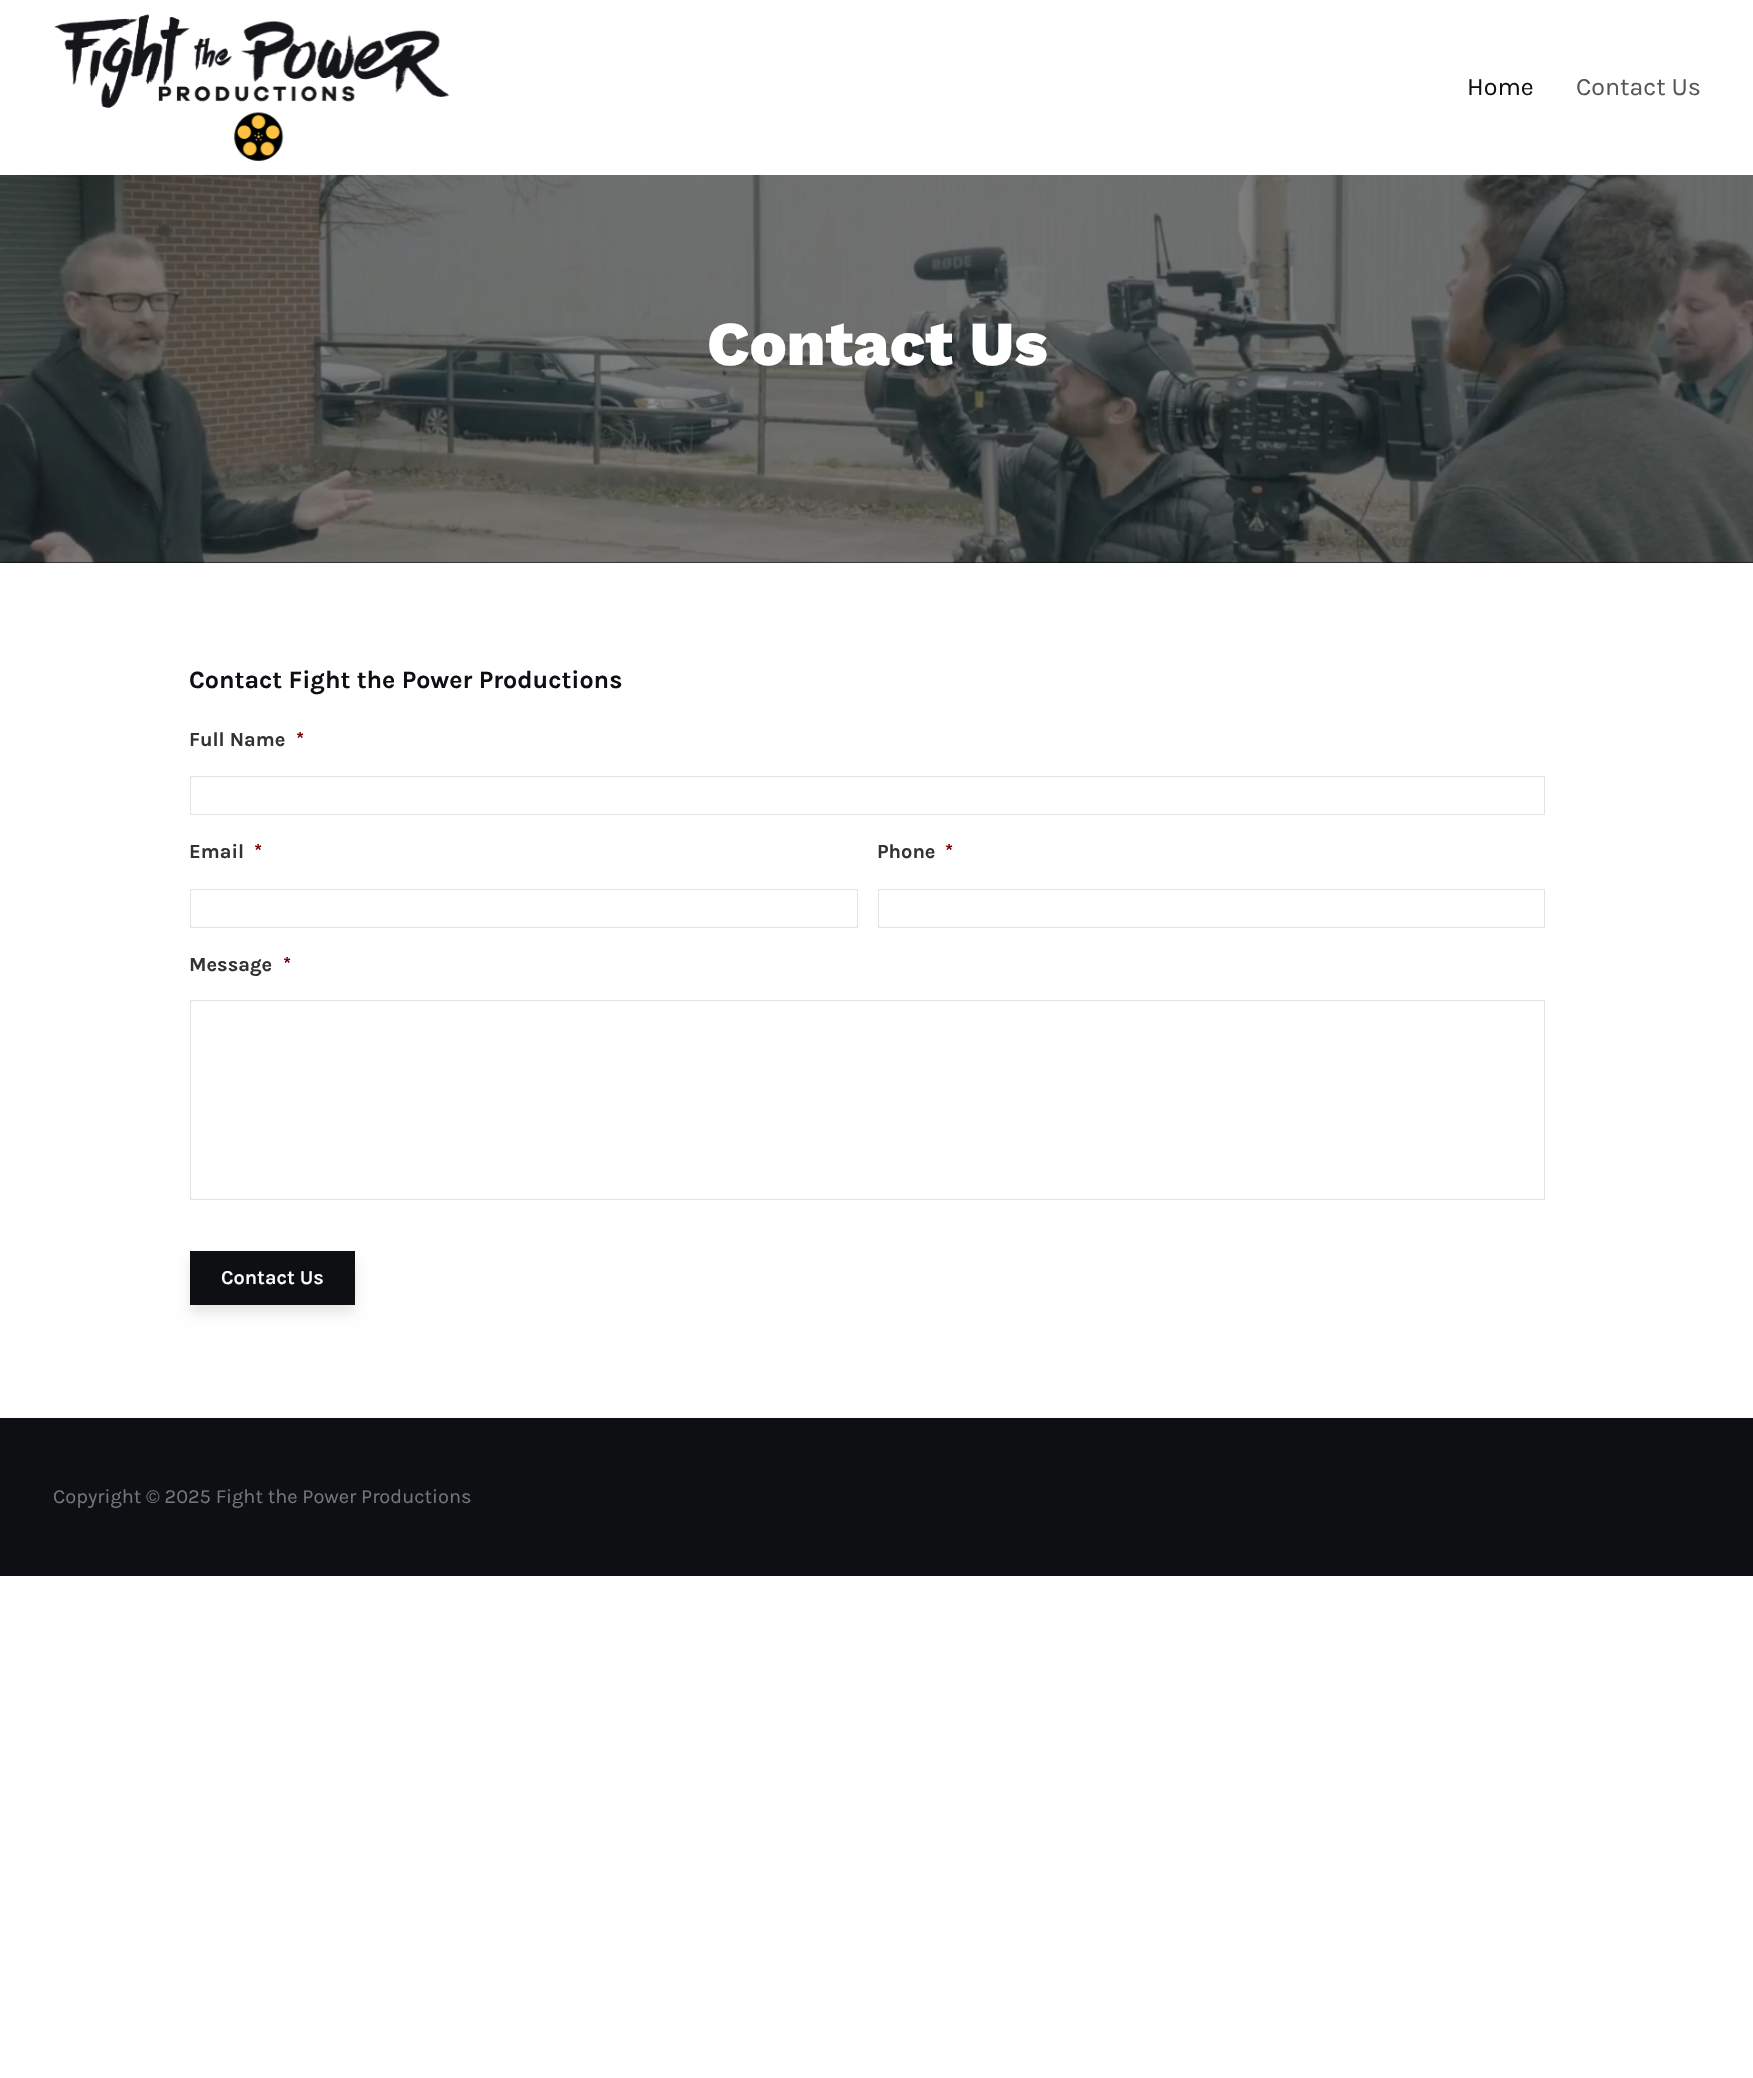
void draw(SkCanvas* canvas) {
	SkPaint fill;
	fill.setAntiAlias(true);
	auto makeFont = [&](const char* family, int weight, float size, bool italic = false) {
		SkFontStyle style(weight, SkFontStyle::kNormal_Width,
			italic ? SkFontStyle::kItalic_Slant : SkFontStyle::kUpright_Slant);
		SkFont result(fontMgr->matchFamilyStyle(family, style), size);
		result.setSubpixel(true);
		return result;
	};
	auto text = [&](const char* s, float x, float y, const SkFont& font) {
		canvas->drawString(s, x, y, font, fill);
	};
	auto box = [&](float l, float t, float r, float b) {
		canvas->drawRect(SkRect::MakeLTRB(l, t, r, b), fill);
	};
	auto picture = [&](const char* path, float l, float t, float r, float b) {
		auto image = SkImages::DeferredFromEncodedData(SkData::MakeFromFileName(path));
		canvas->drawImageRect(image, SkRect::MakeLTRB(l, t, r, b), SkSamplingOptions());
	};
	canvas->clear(0xFFFFFFFF);
	picture("image0.png", 54, 14, 450, 162);
	fill.setColor(0xFF000000);
	box(0, 562, 1753, 563);
	picture("image1.png", 0, 175, 1753, 563);
	fill.setStyle(SkPaint::kStroke_Style);
	fill.setStrokeWidth(1);
	fill.setColor(0xFFE2E2E2);
	canvas->drawRect(SkRect::MakeLTRB(190.5f, 776.5f, 1544.5f, 814.5f), fill);
	canvas->drawRect(SkRect::MakeLTRB(190.5f, 889.5f, 857.5f, 927.5f), fill);
	canvas->drawRect(SkRect::MakeLTRB(878.5f, 889.5f, 1544.5f, 927.5f), fill);
	canvas->drawRect(SkRect::MakeLTRB(190.5f, 1000.5f, 1544.5f, 1199.5f), fill);
	fill.setStyle(SkPaint::kFill_Style);
	fill.setColor(0x1A000000);
	fill.setMaskFilter(SkMaskFilter::MakeBlur(kNormal_SkBlurStyle, 6));
	canvas->drawRect(SkRect::MakeLTRB(190, 1259, 355, 1313), fill);
	fill.setMaskFilter(nullptr);
	fill.setColor(0xFF0D0F13);
	box(190, 1251, 355, 1305);
	box(0, 1418, 1753, 1576);
	auto font1 = makeFont("Karla", 400, 25);
	text("Home", 1467, 95, font1);
	fill.setColor(0xFF56575A);
	text("Contact Us", 1576, 95, font1);
	auto font2 = makeFont("Work Sans", 800, 62.5f);
	fill.setColor(0xFFFFFFFF);
	text("Contact Us", 707, 365, font2);
	auto font3 = makeFont("Karla", 700, 25);
	fill.setColor(0xFF0D0F13);
	text("Contact Fight the Power Productions", 189, 688, font3);
	auto font4 = makeFont("Karla", 700, 20);
	fill.setColor(0xFF333333);
	text("Full Name", 189, 746, font4);
	fill.setColor(0xFF790000);
	text("*", 296, 746, font4);
	fill.setColor(0xFF333333);
	text("Email", 189, 858, font4);
	fill.setColor(0xFF790000);
	text("*", 254, 858, font4);
	fill.setColor(0xFF333333);
	text("Phone", 877, 858, font4);
	fill.setColor(0xFF790000);
	text("*", 945, 858, font4);
	fill.setColor(0xFF333333);
	text("Message", 189, 971, font4);
	fill.setColor(0xFF790000);
	text("*", 283, 971, font4);
	auto font5 = makeFont("Karla", 600, 20);
	fill.setColor(0xFFFFFFFF);
	text("Contact Us", 221, 1284, font5);
	auto font6 = makeFont("Karla", 400, 20);
	fill.setColor(0xFF71767F);
	text("Copyright © 2025 Fight the Power Productions", 53, 1503, font6);
}
